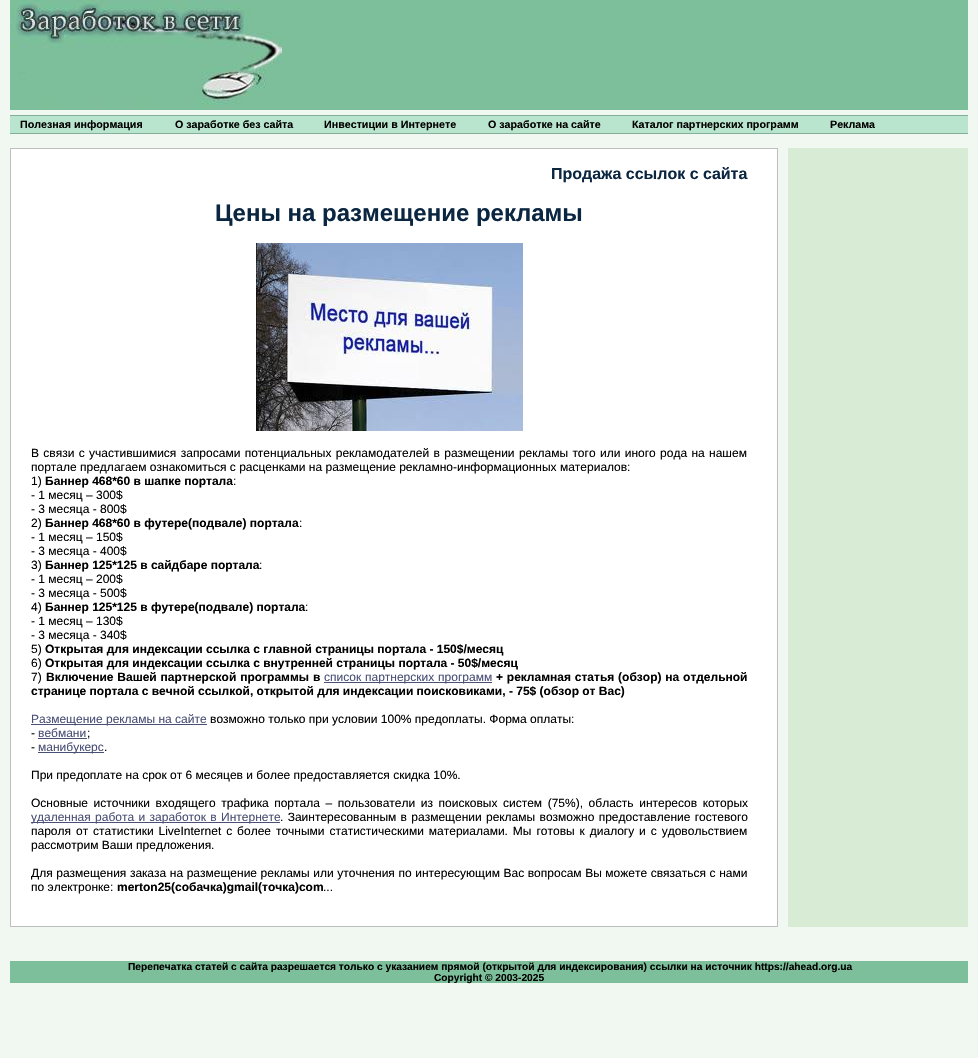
void draw(SkCanvas* canvas) {
	SkPaint fill;
	fill.setAntiAlias(true);
	auto makeFont = [&](const char* family, int weight, float size, bool italic = false) {
		SkFontStyle style(weight, SkFontStyle::kNormal_Width,
			italic ? SkFontStyle::kItalic_Slant : SkFontStyle::kUpright_Slant);
		SkFont result(fontMgr->matchFamilyStyle(family, style), size);
		result.setSubpixel(true);
		return result;
	};
	auto text = [&](const char* s, float x, float y, const SkFont& font) {
		canvas->drawString(s, x, y, font, fill);
	};
	auto spacedText = [&](const char* s, float x, float y, const SkFont& font, const SkPaint& ink, float letter, float word) {
		std::vector<SkGlyphID> glyphs(font.countText(s, strlen(s), SkTextEncoding::kUTF8));
		std::vector<float> xs(glyphs.size());
		font.textToGlyphs(s, strlen(s), SkTextEncoding::kUTF8, glyphs);
		font.getXPos(glyphs, xs, x);
		float extra = 0;
		for (size_t i = 0; i < glyphs.size(); i++) {
			xs[i] += extra;
			extra += letter + word * (glyphs[i] == font.unicharToGlyph(' '));
		}
		canvas->drawTextBlob(SkTextBlob::MakeFromPosHGlyphs(glyphs, xs, y, font), 0, 0, ink);
	};
	auto box = [&](float l, float t, float r, float b) {
		canvas->drawRect(SkRect::MakeLTRB(l, t, r, b), fill);
	};
	auto picture = [&](const char* path, float l, float t, float r, float b) {
		auto image = SkImages::DeferredFromEncodedData(SkData::MakeFromFileName(path));
		canvas->drawImageRect(image, SkRect::MakeLTRB(l, t, r, b), SkSamplingOptions());
	};
	canvas->clear(0xFFF0F8F1);
	fill.setColor(0xFF7CBF9A);
	box(283, 0, 968, 110);
	picture("image0.png", 10, 0, 283, 110);
	fill.setColor(0xFFB9E5CE);
	box(10, 116, 968, 133);
	fill.setColor(0xFF82AF97);
	box(10, 115, 968, 116);
	box(10, 133, 968, 134);
	fill.setColor(0xFFD8ECD5);
	box(788, 148, 968, 927);
	fill.setColor(0xFFFFFFFF);
	canvas->drawRect(SkRect::MakeLTRB(10.5f, 148.5f, 777.5f, 926.5f), fill);
	fill.setStyle(SkPaint::kStroke_Style);
	fill.setStrokeWidth(1);
	fill.setColor(0xFFBEBEBE);
	canvas->drawRect(SkRect::MakeLTRB(10.5f, 148.5f, 777.5f, 926.5f), fill);
	picture("image1.png", 256, 243, 523, 431);
	fill.setStyle(SkPaint::kFill_Style);
	fill.setColor(0xFF4A5075);
	box(324, 682, 492, 683);
	box(31, 724, 207, 725);
	box(38, 738, 87, 739);
	box(38, 752, 104, 753);
	box(31, 822, 280, 823);
	fill.setColor(0xFF7CBF9A);
	box(10, 961, 968, 983);
	auto font1 = makeFont("Liberation Sans", 700, 10.7f);
	fill.setColor(0xFF000000);
	text("Полезная информация", 20, 128, font1);
	text("О заработке без сайта", 175, 128, font1);
	text("Инвестиции в Интернете", 324, 128, font1);
	text("О заработке на сайте", 488, 128, font1);
	text("Каталог партнерских программ", 632, 128, font1);
	text("Реклама", 830, 128, font1);
	auto font2 = makeFont("Liberation Sans", 700, 16);
	fill.setColor(0xFF0B2640);
	text("Продажа ссылок с сайта", 551, 179, font2);
	auto font3 = makeFont("Liberation Sans", 700, 24);
	text("Цены на размещение рекламы", 215, 221, font3);
	auto font4 = makeFont("Liberation Sans", 400, 12);
	fill.setColor(0xFF000000);
	spacedText("В связи с участившимися запросами потенциальных рекламодателей в размещении рекламы того или иного рода на нашем", 31, 457, font4, fill, 0, 1);
	text("портале предлагаем ознакомиться с расценками на размещение рекламно-информационных материалов:", 31, 471, font4);
	text("1)", 31, 485, font4);
	auto font5 = makeFont("Liberation Sans", 700, 12);
	text("Баннер 468*60 в шапке портала", 45, 485, font5);
	text(":", 233, 485, font4);
	text("- 1 месяц – 300$", 31, 499, font4);
	text("- 3 месяца - 800$", 31, 513, font4);
	text("2)", 31, 527, font4);
	text("Баннер 468*60 в футере(подвале) портала", 45, 527, font5);
	text(":", 299, 527, font4);
	text("- 1 месяц – 150$", 31, 541, font4);
	text("- 3 месяца - 400$", 31, 555, font4);
	text("3)", 31, 569, font4);
	text("Баннер 125*125 в сайдбаре портала", 45, 569, font5);
	text(":", 259, 569, font4);
	text("- 1 месяц – 200$", 31, 583, font4);
	text("- 3 месяца - 500$", 31, 597, font4);
	text("4)", 31, 611, font4);
	text("Баннер 125*125 в футере(подвале) портала", 45, 611, font5);
	text(":", 305, 611, font4);
	text("- 1 месяц – 130$", 31, 625, font4);
	text("- 3 месяца - 340$", 31, 639, font4);
	text("5)", 31, 653, font4);
	text("Открытая для индексации ссылка с главной страницы портала - 150$/месяц", 45, 653, font5);
	text("6)", 31, 667, font4);
	text("Открытая для индексации ссылка с внутренней страницы портала - 50$/месяц", 45, 667, font5);
	text("7)", 31, 681, font4);
	spacedText("Включение Вашей партнерской программы в", 46, 681, font5, fill, 0, 0.5f);
	fill.setColor(0xFF4A5075);
	spacedText("список партнерских программ", 324, 681, font4, fill, 0, 0.5f);
	fill.setColor(0xFF000000);
	spacedText("+ рекламная статья (обзор) на отдельной", 496, 681, font5, fill, 0, 0.5f);
	text("странице портала с вечной ссылкой, открытой для индексации поисковиками, - 75$ (обзор от Вас)", 31, 695, font5);
	fill.setColor(0xFF4A5075);
	text("Размещение рекламы на сайте", 31, 723, font4);
	fill.setColor(0xFF000000);
	text("возможно только при условии 100% предоплаты. Форма оплаты:", 210, 723, font4);
	text("-", 31, 737, font4);
	fill.setColor(0xFF4A5075);
	text("вебмани", 38, 737, font4);
	fill.setColor(0xFF000000);
	text(";", 87, 737, font4);
	text("-", 31, 751, font4);
	fill.setColor(0xFF4A5075);
	text("манибукерс", 38, 751, font4);
	fill.setColor(0xFF000000);
	text(".", 104, 751, font4);
	text("При предоплате на срок от 6 месяцев и более предоставляется скидка 10%.", 31, 779, font4);
	spacedText("Основные источники входящего трафика портала – пользователи из поисковых систем (75%), область интересов которых", 31, 807, font4, fill, 0, 2.25f);
	fill.setColor(0xFF4A5075);
	spacedText("удаленная работа и заработок в Интернете", 31, 821, font4, fill, 0, 1);
	fill.setColor(0xFF000000);
	spacedText(". Заинтересованным в размещении рекламы возможно предоставление гостевого", 280, 821, font4, fill, 0, 1);
	spacedText("пароля от статистики LiveInternet с более точными статистическими материалами. Мы готовы к диалогу и с удовольствием", 31, 835, font4, fill, 0, 1.6f);
	text("рассмотрим Ваши предложения.", 31, 849, font4);
	spacedText("Для размещения заказа на размещение рекламы или уточнения по интересующим Вас вопросам Вы можете связаться с нами", 31, 877, font4, fill, 0, 0.25f);
	text("по электронке:", 31, 891, font4);
	text("merton25(собачка)gmail(точка)com", 117, 891, font5);
	text("...", 323, 891, font4);
	auto font6 = makeFont("Liberation Sans", 700, 10.2f);
	text("Перепечатка статей с сайта разрешается только с указанием прямой (открытой для индексирования) ссылки на источник https://ahead.org.ua", 128, 970, font6);
	text("Copyright © 2003-2025", 434, 981, font6);
}
